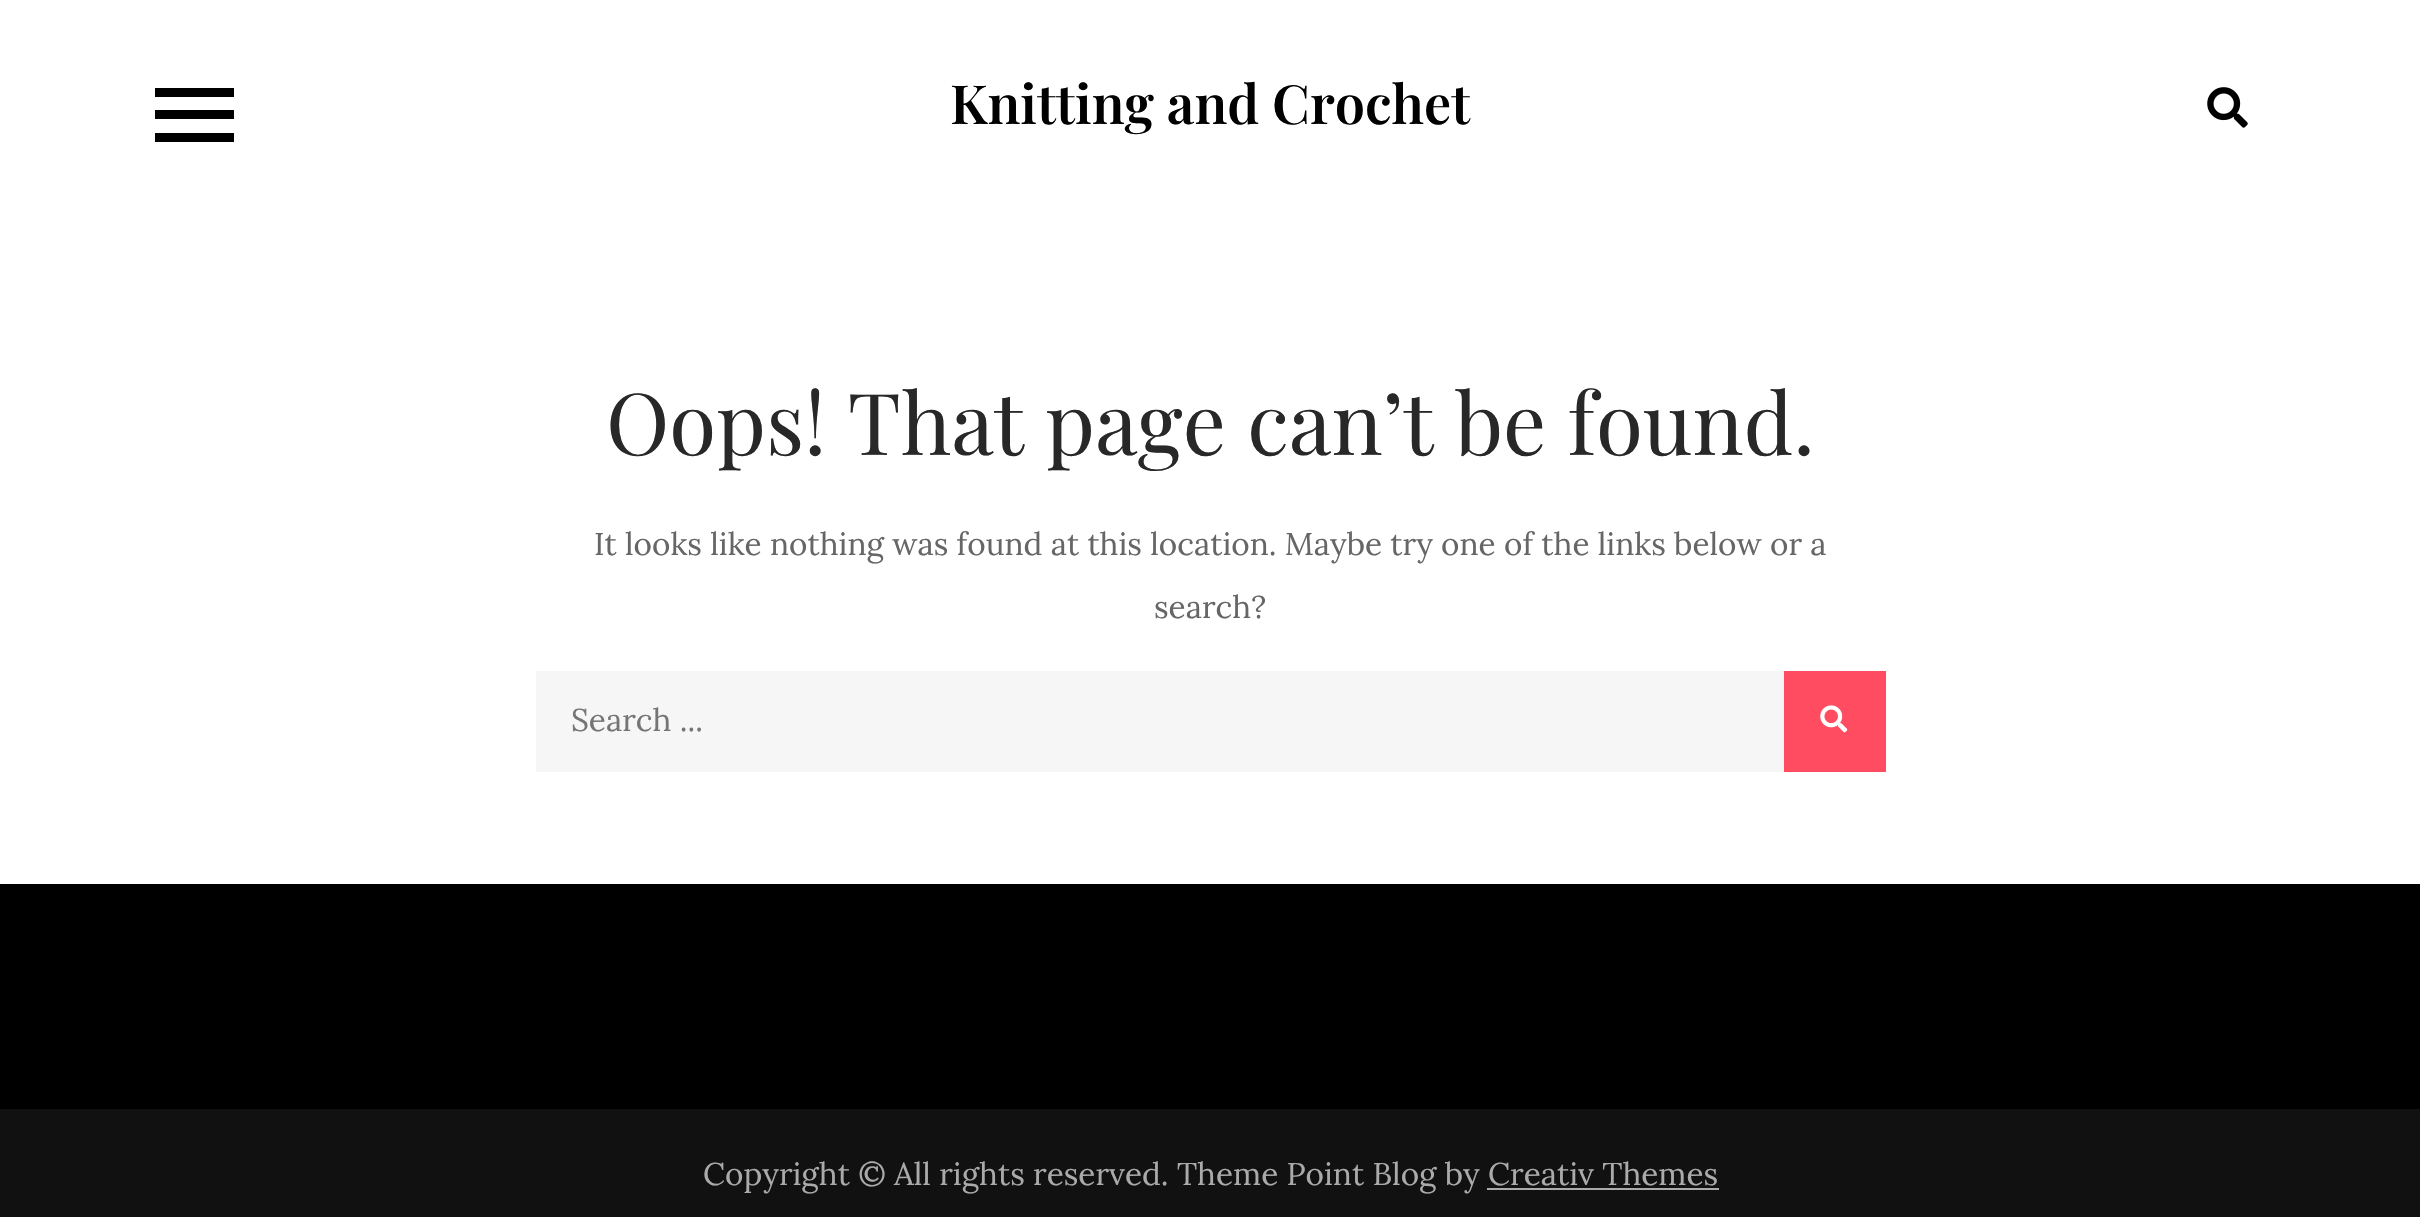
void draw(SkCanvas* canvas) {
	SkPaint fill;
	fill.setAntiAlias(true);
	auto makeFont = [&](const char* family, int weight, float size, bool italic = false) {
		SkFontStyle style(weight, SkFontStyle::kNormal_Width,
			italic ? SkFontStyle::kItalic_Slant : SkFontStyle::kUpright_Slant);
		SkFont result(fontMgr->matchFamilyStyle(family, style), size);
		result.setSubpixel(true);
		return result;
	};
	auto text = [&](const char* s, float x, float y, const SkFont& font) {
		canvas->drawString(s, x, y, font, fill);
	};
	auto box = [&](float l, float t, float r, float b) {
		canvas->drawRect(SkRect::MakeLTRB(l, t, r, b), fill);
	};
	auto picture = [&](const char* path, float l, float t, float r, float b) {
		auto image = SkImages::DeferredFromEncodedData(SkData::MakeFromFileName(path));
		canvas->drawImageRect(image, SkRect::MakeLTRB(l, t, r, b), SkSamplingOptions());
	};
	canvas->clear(0xFFFFFFFF);
	fill.setColor(0xFF000000);
	box(155, 110, 234, 119);
	box(155, 88, 234, 97);
	box(155, 133, 234, 142);
	picture("image0.png", 2207, 87, 2248, 128);
	fill.setColor(0xFFF6F6F6);
	box(536, 671, 1784, 772);
	fill.setColor(0xFFFF4C60);
	box(1784, 671, 1886, 772);
	picture("image1.png", 1820, 705, 1848, 733);
	fill.setColor(0xFF000000);
	box(0, 884, 2420, 1109);
	fill.setColor(0xFF111111);
	box(0, 1109, 2420, 1217);
	fill.setColor(0xFFAAAAAA);
	box(1487, 1188, 1719, 1190);
	auto font1 = makeFont("Playfair Display", 600, 54);
	fill.setColor(0xFF000000);
	text("Knitting and Crochet", 950, 124, font1);
	auto font2 = makeFont("Playfair Display", 400, 85.5f);
	fill.setColor(0xFF282828);
	text("Oops! That page can’t be found.", 606, 455, font2);
	auto font3 = makeFont("Lora", 400, 31.5f);
	fill.setColor(0xFF666666);
	text("It looks like nothing was found at this location. Maybe try one of the links below or a", 594, 555, font3);
	text("search?", 1154, 618, font3);
	fill.setColor(0xFF757575);
	text("Search ...", 571, 731, font3);
	fill.setColor(0xFFAAAAAA);
	text("Copyright © All rights reserved. Theme Point Blog by Creativ Themes", 703, 1185, font3);
}
